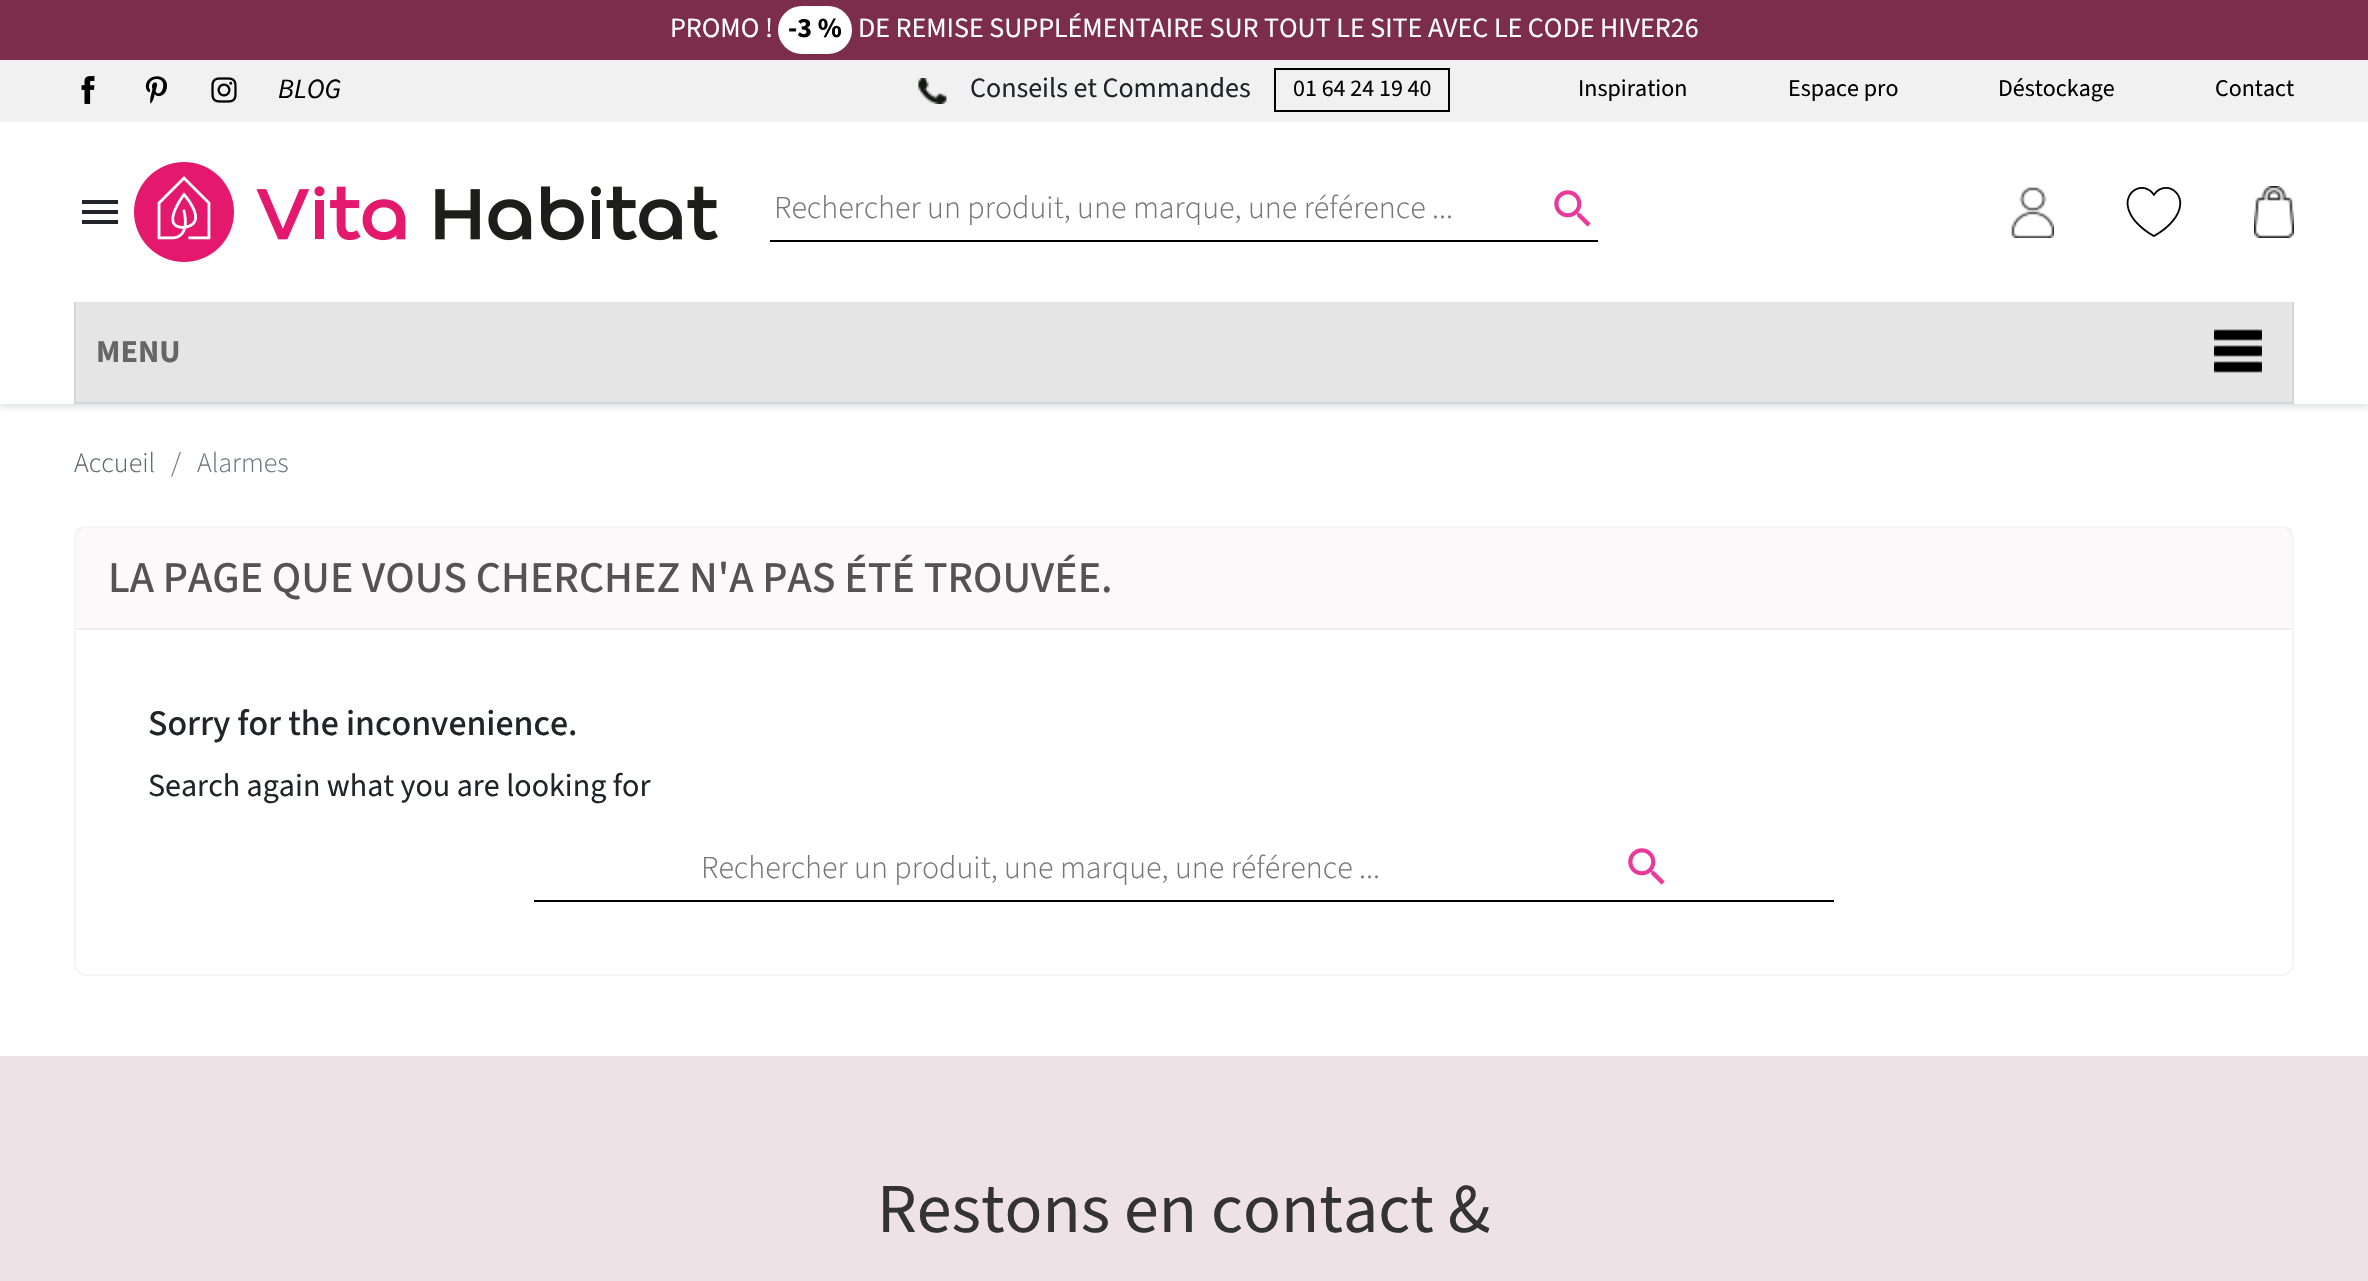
void draw(SkCanvas* canvas) {
	SkPaint fill;
	fill.setAntiAlias(true);
	auto makeFont = [&](const char* family, int weight, float size, bool italic = false) {
		SkFontStyle style(weight, SkFontStyle::kNormal_Width,
			italic ? SkFontStyle::kItalic_Slant : SkFontStyle::kUpright_Slant);
		SkFont result(fontMgr->matchFamilyStyle(family, style), size);
		result.setSubpixel(true);
		return result;
	};
	auto text = [&](const char* s, float x, float y, const SkFont& font) {
		canvas->drawString(s, x, y, font, fill);
	};
	auto box = [&](float l, float t, float r, float b) {
		canvas->drawRect(SkRect::MakeLTRB(l, t, r, b), fill);
	};
	auto roundBox = [&](float l, float t, float r, float b, float radius) {
		canvas->drawRoundRect(SkRect::MakeLTRB(l, t, r, b), radius, radius, fill);
	};
	auto picture = [&](const char* path, float l, float t, float r, float b) {
		auto image = SkImages::DeferredFromEncodedData(SkData::MakeFromFileName(path));
		canvas->drawImageRect(image, SkRect::MakeLTRB(l, t, r, b), SkSamplingOptions());
	};
	canvas->clear(0xFFFFFFFF);
	canvas->save();
	canvas->clipRect(SkRect::MakeLTRB(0, 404, 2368, 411));
	fill.setColor(0x2B051C2C);
	fill.setMaskFilter(SkMaskFilter::MakeBlur(kNormal_SkBlurStyle, 4.5f));
	canvas->drawRect(SkRect::MakeLTRB(0, 0, 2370, 406), fill);
	fill.setMaskFilter(nullptr);
	canvas->restore();
	fill.setColor(0xFF7C2D4A);
	box(0, 0, 2368, 60);
	fill.setColor(0xFFFFFFFF);
	roundBox(778, 6, 852, 54, 24);
	fill.setColor(0xFFF1F1F1);
	box(0, 60, 2368, 122);
	picture("image0.png", 81, 76, 95, 104);
	picture("image1.png", 145, 76, 167, 104);
	picture("image2.png", 211, 77, 237, 103);
	picture("image3.png", 918, 78, 947, 104);
	fill.setStyle(SkPaint::kStroke_Style);
	fill.setStrokeWidth(2);
	fill.setColor(0xFF000000);
	canvas->drawRect(SkRect::MakeLTRB(1275, 69, 1449, 111), fill);
	fill.setStyle(SkPaint::kFill_Style);
	fill.setColor(0xFF212529);
	canvas->drawPath(SkPathBuilder().moveTo(82, 200).lineTo(118, 200).lineTo(118, 204).lineTo(82, 204).close().moveTo(82, 214).lineTo(82, 210).lineTo(118, 210).lineTo(118, 214).close().moveTo(82, 224).lineTo(82, 220).lineTo(118, 220).lineTo(118, 224).close().detach(), fill);
	picture("image4.png", 134, 162, 718, 262);
	fill.setColor(0xFF000000);
	box(770, 240, 1598, 242);
	picture("image5.png", 1554, 190, 1591, 227);
	picture("image6.png", 2011, 187, 2054, 238);
	picture("image7.png", 2126, 187, 2182, 237);
	picture("image8.png", 2254, 186, 2294, 238);
	fill.setColor(0xFFD6D4D4);
	box(2292, 302, 2294, 404);
	box(74, 402, 2294, 404);
	box(74, 302, 76, 404);
	fill.setColor(0xFFE5E5E5);
	box(76, 302, 2292, 402);
	picture("image9.png", 2214, 329, 2262, 373);
	fill.setStyle(SkPaint::kStroke_Style);
	fill.setColor(0xFFF5F5F5);
	canvas->drawRoundRect(SkRect::MakeLTRB(75, 527, 2293, 975), 11, 11, fill);
	fill.setStyle(SkPaint::kFill_Style);
	fill.setColor(0x21DDD1D6);
	box(76, 528, 2292, 628);
	fill.setColor(0xFFEEEEEE);
	box(76, 628, 2292, 630);
	fill.setColor(0xFF000000);
	box(534, 900, 1834, 902);
	picture("image5.png", 1628, 848, 1665, 885);
	fill.setColor(0xFFEEE2E6);
	box(0, 1056, 2368, 1281);
	auto font1 = makeFont("Source Sans 3", 400, 28);
	fill.setColor(0xFFFFFFFF);
	text("PROMO !", 670, 37, font1);
	auto font2 = makeFont("Source Sans 3", 700, 28);
	fill.setColor(0xFF000000);
	text("-3 %", 788, 37, font2);
	fill.setColor(0xFFFFFFFF);
	text("DE REMISE SUPPLÉMENTAIRE SUR TOUT LE SITE AVEC LE CODE HIVER26", 858, 37, font1);
	auto font3 = makeFont("Source Sans 3", 400, 28, true);
	fill.setColor(0xFF000000);
	text("BLOG", 278, 98, font3);
	fill.setColor(0xFF212529);
	text("Conseils et Commandes", 970, 97, font1);
	auto font4 = makeFont("Source Sans 3", 400, 24);
	fill.setColor(0xFF000000);
	text("01 64 24 19 40", 1293, 96, font4);
	text("Inspiration", 1578, 96, font4);
	text("Espace pro", 1788, 96, font4);
	text("Déstockage", 1998, 96, font4);
	text("Contact", 2215, 96, font4);
	auto font5 = makeFont("Source Sans 3", 300, 32);
	fill.setColor(0xFF757575);
	text("Rechercher un produit, une marque, une référence ...", 774, 218, font5);
	auto font6 = makeFont("Source Sans 3", 700, 32);
	fill.setColor(0xFF666666);
	text("MENU", 96, 362, font6);
	auto font7 = makeFont("Source Sans 3", 300, 28);
	fill.setColor(0xFF5D6469);
	text("Accueil", 74, 472, font7);
	fill.setColor(0xFF6C757D);
	text("/", 171, 472, font7);
	text("Alarmes", 197, 472, font7);
	auto font8 = makeFont("Source Sans 3", 500, 44);
	fill.setColor(0xFF575153);
	text("LA PAGE QUE VOUS CHERCHEZ N'A PAS ÉTÉ TROUVÉE.", 108, 592, font8);
	auto font9 = makeFont("Source Sans 3", 500, 36);
	fill.setColor(0xFF212529);
	text("Sorry for the inconvenience.", 148, 735, font9);
	auto font10 = makeFont("Source Sans 3", 400, 32);
	text("Search again what you are looking for", 148, 796, font10);
	fill.setColor(0xFF757575);
	text("Rechercher un produit, une marque, une référence ...", 701, 878, font5);
	auto font11 = makeFont("Source Sans 3", 400, 70);
	fill.setColor(0xFF333333);
	text("Restons en contact &", 877, 1232, font11);
}
